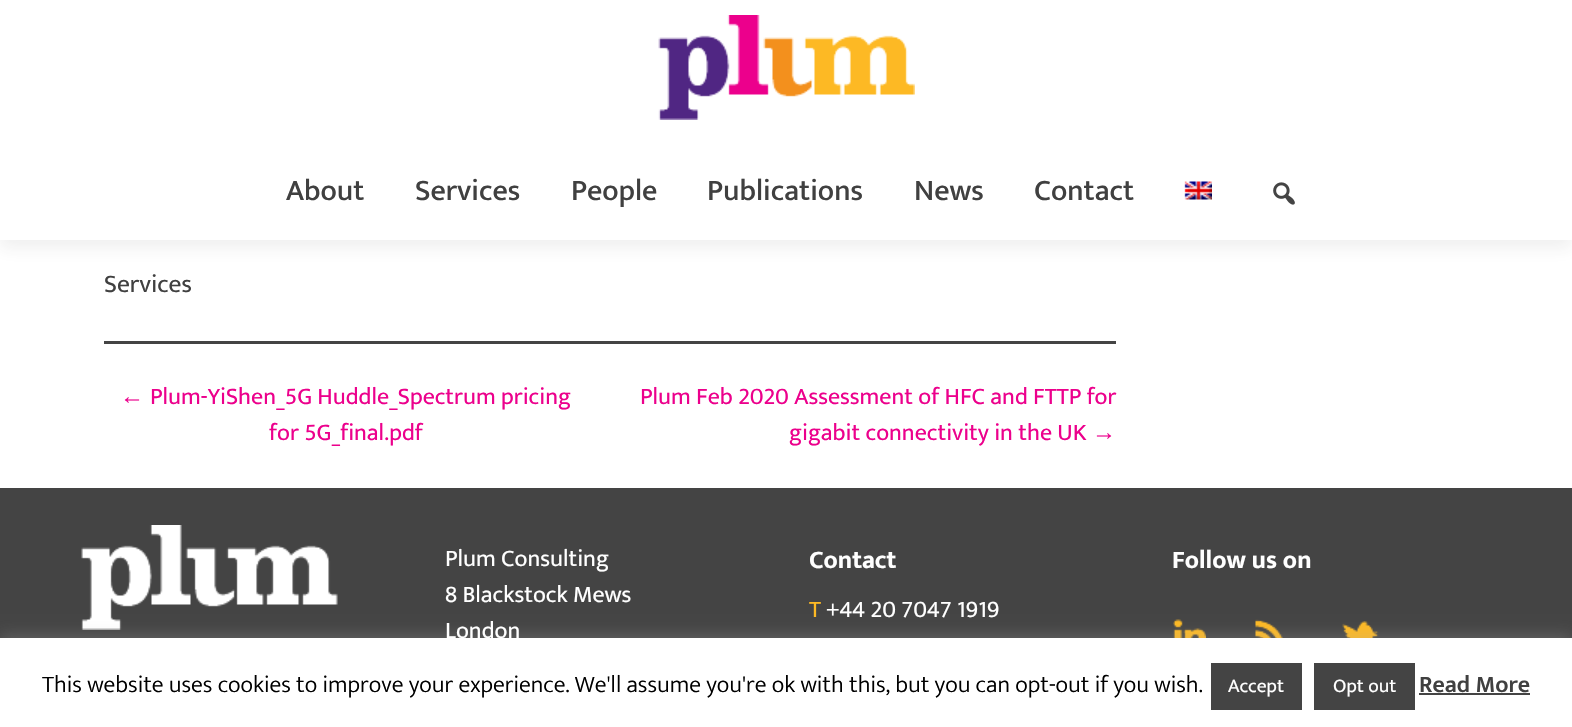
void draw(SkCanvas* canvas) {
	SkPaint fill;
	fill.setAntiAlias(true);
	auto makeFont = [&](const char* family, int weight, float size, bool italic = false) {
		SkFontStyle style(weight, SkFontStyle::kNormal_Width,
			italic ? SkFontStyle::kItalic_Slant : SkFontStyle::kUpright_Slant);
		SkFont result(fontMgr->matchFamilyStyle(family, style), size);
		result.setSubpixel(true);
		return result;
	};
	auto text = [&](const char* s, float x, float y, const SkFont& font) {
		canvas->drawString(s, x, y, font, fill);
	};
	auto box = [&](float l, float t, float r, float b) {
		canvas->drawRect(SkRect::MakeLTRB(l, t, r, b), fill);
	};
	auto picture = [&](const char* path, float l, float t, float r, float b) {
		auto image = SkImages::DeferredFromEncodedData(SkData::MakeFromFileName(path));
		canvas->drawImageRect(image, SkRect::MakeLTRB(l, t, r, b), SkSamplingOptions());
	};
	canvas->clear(0xFFFFFFFF);
	fill.setColor(0x14323232);
	fill.setMaskFilter(SkMaskFilter::MakeBlur(kNormal_SkBlurStyle, 8));
	canvas->drawRect(SkRect::MakeLTRB(0, 8, 1572, 248), fill);
	fill.setMaskFilter(nullptr);
	fill.setColor(0xFFFFFFFF);
	box(0, 0, 1572, 240);
	picture("image0.png", 658, 15, 915, 120);
	picture("image1.png", 1184, 181, 1212, 200);
	picture("image2.png", 1273, 182, 1295, 205);
	fill.setColor(0xFF444444);
	box(104, 341, 1116, 344);
	box(0, 488, 1572, 638);
	picture("image3.png", 81, 525, 338, 630);
	picture("image4.png", 1173, 619, 1206, 638);
	picture("image5.png", 1255, 619, 1283, 638);
	picture("image6.png", 1342, 621, 1379, 638);
	fill.setColor(0x4DACABAB);
	fill.setMaskFilter(SkMaskFilter::MakeBlur(kNormal_SkBlurStyle, 7.5f));
	canvas->drawRect(SkRect::MakeLTRB(0, 636, 1572, 726), fill);
	fill.setMaskFilter(nullptr);
	fill.setColor(0xFFFFFFFF);
	box(0, 638, 1572, 727);
	fill.setColor(0xFF444444);
	box(1211, 663, 1302, 710);
	box(1314, 663, 1415, 710);
	box(1419, 693, 1530, 695);
	auto font1 = makeFont("Ek Mukta", 500, 30);
	fill.setColor(0xFF404040);
	text("About", 286, 200, font1);
	text("Services", 415, 200, font1);
	text("People", 571, 200, font1);
	text("Publications", 707, 200, font1);
	text("News", 914, 200, font1);
	text("Contact", 1034, 200, font1);
	auto font2 = makeFont("Ek Mukta", 400, 25.5f);
	text("Services", 104, 292, font2);
	auto font3 = makeFont("Liberation Sans", 400, 24);
	fill.setColor(0xFFEC008C);
	text("←", 120, 404, font3);
	auto font4 = makeFont("Ek Mukta", 400, 24);
	text("Plum-YiShen_5G Huddle_Spectrum pricing", 150, 404, font4);
	text("for 5G_final.pdf", 269, 440, font4);
	text("Plum Feb 2020 Assessment of HFC and FTTP for", 640, 404, font4);
	text("gigabit connectivity in the UK", 789, 440, font4);
	text("→", 1092, 440, font3);
	fill.setColor(0xFFFFFFFF);
	text("Plum Consulting", 445, 566, font4);
	text("8 Blackstock Mews", 445, 602, font4);
	text("London", 445, 638, font4);
	auto font5 = makeFont("Ek Mukta", 700, 25.5f);
	text("Contact", 809, 568, font5);
	fill.setColor(0xFFFDB924);
	text("T", 809, 617, font4);
	fill.setColor(0xFFFFFFFF);
	text("+44 20 7047 1919", 826, 617, font4);
	text("Follow us on", 1172, 568, font5);
	auto font6 = makeFont("Ek Mukta", 300, 24);
	fill.setColor(0xFF000000);
	text("This website uses cookies to improve your experience. We'll assume you're ok with this, but you can opt-out if you wish.", 42, 692, font6);
	auto font7 = makeFont("Ek Mukta", 400, 19.5f);
	fill.setColor(0xFFFFFFFF);
	text("Accept", 1228, 692, font7);
	text("Opt out", 1333, 692, font7);
	auto font8 = makeFont("Ek Mukta", 600, 24);
	fill.setColor(0xFF404040);
	text("Read More", 1419, 692, font8);
}
